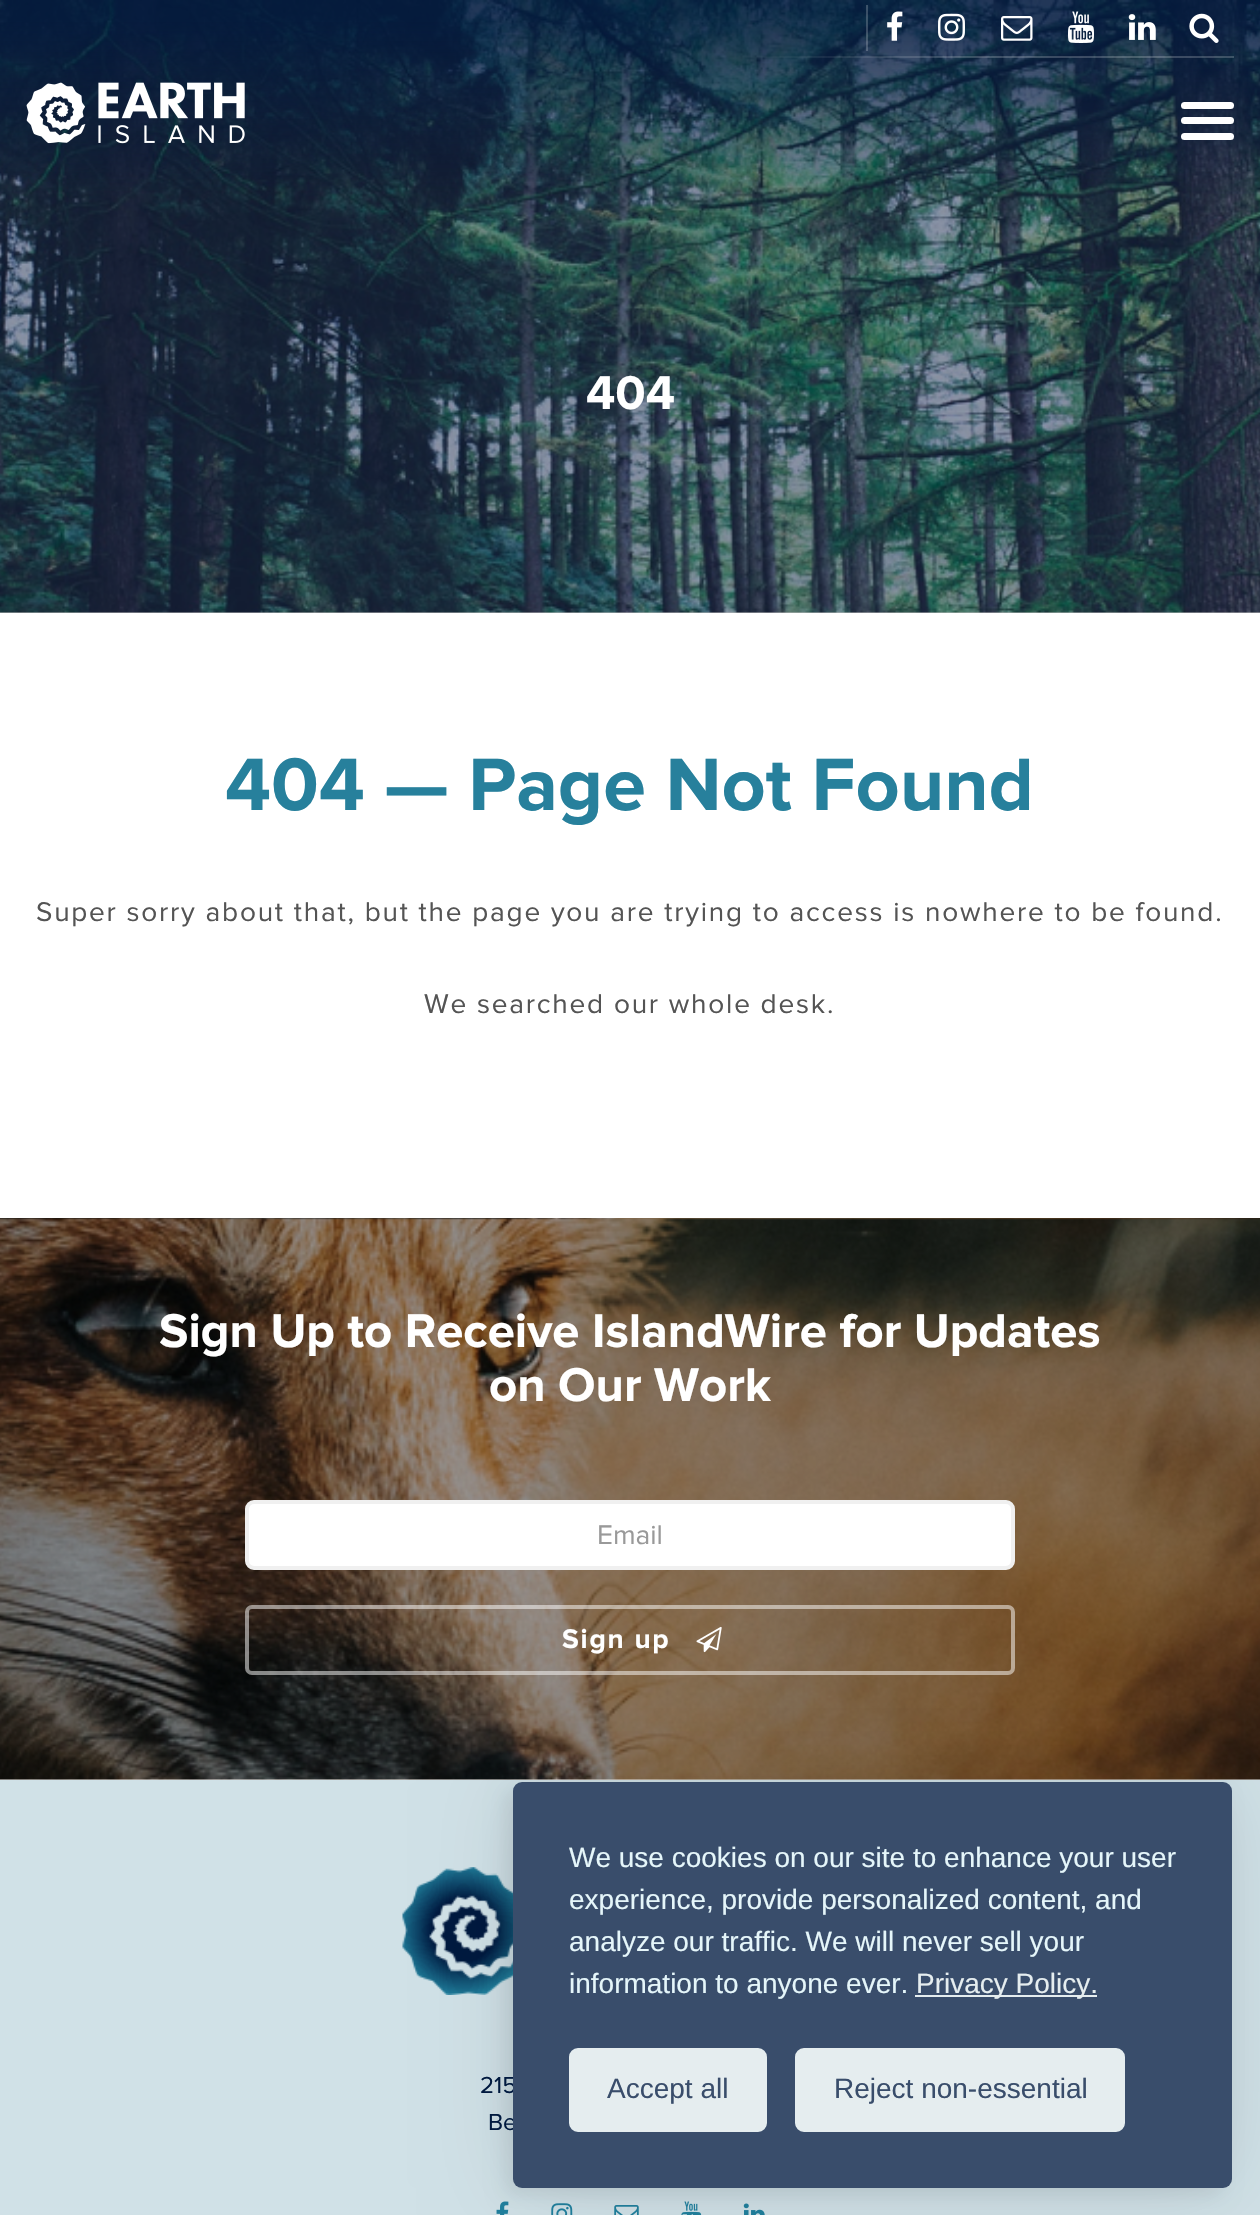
void draw(SkCanvas* canvas) {
	SkPaint fill;
	fill.setAntiAlias(true);
	auto makeFont = [&](const char* family, int weight, float size, bool italic = false) {
		SkFontStyle style(weight, SkFontStyle::kNormal_Width,
			italic ? SkFontStyle::kItalic_Slant : SkFontStyle::kUpright_Slant);
		SkFont result(fontMgr->matchFamilyStyle(family, style), size);
		result.setSubpixel(true);
		return result;
	};
	auto text = [&](const char* s, float x, float y, const SkFont& font) {
		canvas->drawString(s, x, y, font, fill);
	};
	auto spacedText = [&](const char* s, float x, float y, const SkFont& font, const SkPaint& ink, float letter, float word) {
		std::vector<SkGlyphID> glyphs(font.countText(s, strlen(s), SkTextEncoding::kUTF8));
		std::vector<float> xs(glyphs.size());
		font.textToGlyphs(s, strlen(s), SkTextEncoding::kUTF8, glyphs);
		font.getXPos(glyphs, xs, x);
		float extra = 0;
		for (size_t i = 0; i < glyphs.size(); i++) {
			xs[i] += extra;
			extra += letter + word * (glyphs[i] == font.unicharToGlyph(' '));
		}
		canvas->drawTextBlob(SkTextBlob::MakeFromPosHGlyphs(glyphs, xs, y, font), 0, 0, ink);
	};
	auto box = [&](float l, float t, float r, float b) {
		canvas->drawRect(SkRect::MakeLTRB(l, t, r, b), fill);
	};
	auto roundBox = [&](float l, float t, float r, float b, float radius) {
		canvas->drawRoundRect(SkRect::MakeLTRB(l, t, r, b), radius, radius, fill);
	};
	auto picture = [&](const char* path, float l, float t, float r, float b) {
		auto image = SkImages::DeferredFromEncodedData(SkData::MakeFromFileName(path));
		canvas->drawImageRect(image, SkRect::MakeLTRB(l, t, r, b), SkSamplingOptions());
	};
	canvas->clear(0xFFFFFFFF);
	fill.setColor(0xFFBFBFBF);
	box(0, 612, 1260, 613);
	picture("image7.png", 0, 0, 1260, 613);
	picture("image0.png", 26, 82, 245, 144);
	fill.setColor(0x33FFFFFF);
	box(866, 5, 868, 51);
	picture("image1.png", 887, 11, 903, 41);
	picture("image2.png", 938, 13, 965, 41);
	picture("image3.png", 1001, 16, 1033, 41);
	picture("image4.png", 1068, 11, 1094, 43);
	picture("image5.png", 1128, 14, 1156, 40);
	picture("image6.png", 1189, 13, 1219, 43);
	fill.setColor(0xFFFFFFFF);
	roundBox(1181, 102, 1234, 109, 3.5f);
	roundBox(1181, 117, 1234, 124, 3.5f);
	roundBox(1181, 133, 1234, 140, 3.5f);
	picture("image8.png", 0, 1218, 1260, 1780);
	canvas->drawRoundRect(SkRect::MakeLTRB(247, 1502, 1013, 1568), 7, 7, fill);
	fill.setStyle(SkPaint::kStroke_Style);
	fill.setStrokeWidth(4);
	fill.setColor(0xFFF0F0F0);
	canvas->drawRoundRect(SkRect::MakeLTRB(247, 1502, 1013, 1568), 7, 7, fill);
	fill.setColor(0x80FFFFFF);
	canvas->drawRoundRect(SkRect::MakeLTRB(247, 1607, 1013, 1673), 5, 5, fill);
	picture("image9.png", 696, 1626, 722, 1653);
	fill.setStyle(SkPaint::kFill_Style);
	fill.setColor(0xFFD0E1E7);
	box(0, 1780, 1260, 2215);
	picture("image10.png", 402, 1867, 513, 1995);
	picture("image11.png", 496, 2201, 509, 2215);
	picture("image12.png", 551, 2203, 573, 2215);
	picture("image13.png", 614, 2205, 639, 2215);
	picture("image14.png", 681, 2201, 702, 2215);
	picture("image15.png", 743, 2203, 765, 2215);
	fill.setColor(0x1A000000);
	fill.setMaskFilter(SkMaskFilter::MakeBlur(kNormal_SkBlurStyle, 44));
	canvas->drawRoundRect(SkRect::MakeLTRB(513, 1782, 1232, 2188), 9, 9, fill);
	fill.setMaskFilter(nullptr);
	fill.setColor(0x12000000);
	fill.setMaskFilter(SkMaskFilter::MakeBlur(kNormal_SkBlurStyle, 9));
	canvas->drawRoundRect(SkRect::MakeLTRB(504, 1790, 1223, 2196), 9, 9, fill);
	fill.setMaskFilter(nullptr);
	auto font1 = makeFont("Proxima Nova", 700, 49);
	fill.setColor(0xFFFFFFFF);
	text("404", 586, 409, font1);
	auto font2 = makeFont("Proxima Nova", 700, 77);
	fill.setColor(0xFF27809C);
	text("404 — Page Not Found", 225, 810, font2);
	auto font3 = makeFont("Proxima Nova", 400, 28);
	fill.setColor(0xFF545454);
	spacedText("Super sorry about that, but the page you are trying to access is nowhere to be found.", 36, 921, font3, fill, 1.75f, 0);
	spacedText("We searched our whole desk.", 424, 1013, font3, fill, 1.75f, 0);
	fill.setColor(0xFFFFFFFF);
	text("Sign Up to Receive IslandWire for Updates", 159, 1347, font1);
	text("on Our Work", 489, 1401, font1);
	fill.setColor(0xFF999999);
	text("Email", 597, 1544, font3);
	auto font4 = makeFont("Proxima Nova", 700, 28);
	fill.setColor(0xFFFFFFFF);
	spacedText("Sign up", 562, 1648, font4, fill, 1.75f, 0);
	auto font5 = makeFont("Proxima Nova", 400, 24);
	fill.setColor(0xFF00193F);
	text("215", 480, 2093, font5);
	text("Be", 488, 2130, font5);
	fill.setColor(0xFF394D6B);
	roundBox(513, 1782, 1232, 2188, 9);
	auto font6 = makeFont("Liberation Sans", 400, 28);
	fill.setColor(0xFFE5F6FA);
	text("We use cookies on our site to enhance your user", 569, 1867, font6);
	text("experience, provide personalized content, and", 569, 1909, font6);
	text("analyze our traffic. We will never sell your", 569, 1951, font6);
	text("information to anyone ever.", 569, 1993, font6);
	fill.setColor(0xFFE5EDEF);
	box(915, 1995, 1097, 1997);
	text("Privacy Policy.", 916, 1993, font6);
	canvas->drawRoundRect(SkRect::MakeLTRB(571, 2050, 765, 2130), 7, 7, fill);
	fill.setStyle(SkPaint::kStroke_Style);
	canvas->drawRoundRect(SkRect::MakeLTRB(571, 2050, 765, 2130), 7, 7, fill);
	fill.setStyle(SkPaint::kFill_Style);
	fill.setColor(0xFF394D6B);
	text("Accept all", 607, 2098, font6);
	fill.setColor(0xFFE5EDEF);
	canvas->drawRoundRect(SkRect::MakeLTRB(797, 2050, 1123, 2130), 7, 7, fill);
	fill.setStyle(SkPaint::kStroke_Style);
	canvas->drawRoundRect(SkRect::MakeLTRB(797, 2050, 1123, 2130), 7, 7, fill);
	fill.setStyle(SkPaint::kFill_Style);
	fill.setColor(0xFF394D6B);
	text("Reject non-essential", 834, 2098, font6);
}
